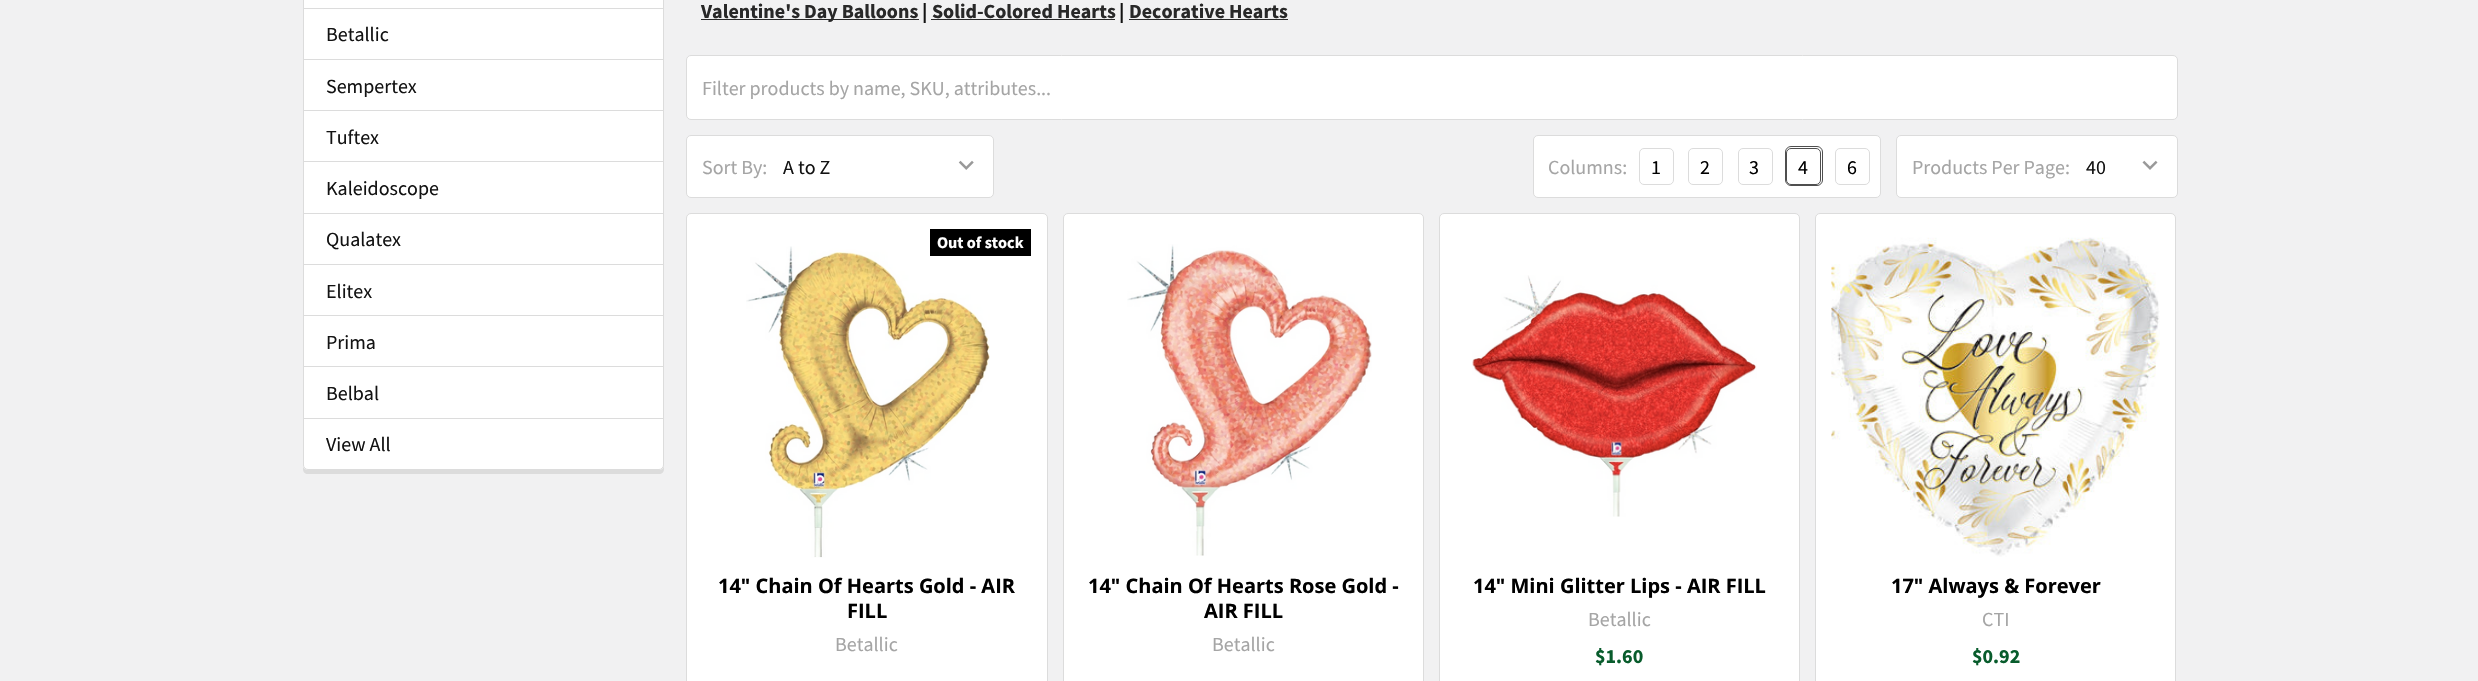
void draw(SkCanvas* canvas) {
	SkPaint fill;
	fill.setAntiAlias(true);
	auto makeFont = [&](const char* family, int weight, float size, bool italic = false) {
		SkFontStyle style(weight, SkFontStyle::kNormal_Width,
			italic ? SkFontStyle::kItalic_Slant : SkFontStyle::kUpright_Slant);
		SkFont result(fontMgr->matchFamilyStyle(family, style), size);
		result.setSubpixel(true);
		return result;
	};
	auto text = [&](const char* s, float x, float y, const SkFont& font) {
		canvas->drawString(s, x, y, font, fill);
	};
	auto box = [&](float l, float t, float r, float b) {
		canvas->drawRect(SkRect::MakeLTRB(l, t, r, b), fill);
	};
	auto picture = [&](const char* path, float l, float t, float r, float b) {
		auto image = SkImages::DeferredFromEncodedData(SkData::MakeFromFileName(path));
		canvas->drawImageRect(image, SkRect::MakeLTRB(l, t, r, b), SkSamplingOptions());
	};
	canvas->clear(0xFFF1F1F2);
	fill.setColor(0xFFDCDCDC);
	canvas->drawPath(SkPathBuilder().moveTo(303, 467).lineTo(303, 469).cubicTo(303, 472, 305, 474, 308, 474).lineTo(659, 474).cubicTo(662, 474, 664, 472, 664, 469).lineTo(664, -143).lineTo(664, 465).cubicTo(664, 468, 662, 470, 659, 470).lineTo(308, 470).cubicTo(306, 470, 304, 469, 303, 467).close().detach(), fill);
	fill.setColor(0xFFFFFFFF);
	canvas->drawRoundRect(SkRect::MakeLTRB(303.5f, -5.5f, 663.5f, 469.5f), 4.5f, 4.5f, fill);
	fill.setStyle(SkPaint::kStroke_Style);
	fill.setStrokeWidth(1);
	fill.setColor(0xFFDCDCDC);
	canvas->drawRoundRect(SkRect::MakeLTRB(303.5f, -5.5f, 663.5f, 469.5f), 4.5f, 4.5f, fill);
	fill.setStyle(SkPaint::kFill_Style);
	box(304, 8, 663, 9);
	box(304, 59, 663, 60);
	box(304, 110, 663, 111);
	box(304, 161, 663, 162);
	box(304, 213, 663, 214);
	box(304, 264, 663, 265);
	box(304, 315, 663, 316);
	box(304, 366, 663, 367);
	box(304, 418, 663, 419);
	fill.setColor(0xFF282828);
	box(701, 19, 919, 20);
	box(931, 19, 1115, 20);
	box(1129, 19, 1288, 20);
	fill.setColor(0xFFFFFFFF);
	canvas->drawRoundRect(SkRect::MakeLTRB(686.5f, 55.5f, 2177.5f, 119.5f), 4.5f, 4.5f, fill);
	fill.setStyle(SkPaint::kStroke_Style);
	fill.setColor(0xFFDCDCDC);
	canvas->drawRoundRect(SkRect::MakeLTRB(686.5f, 55.5f, 2177.5f, 119.5f), 4.5f, 4.5f, fill);
	fill.setStyle(SkPaint::kFill_Style);
	fill.setColor(0xFFFFFFFF);
	canvas->drawRoundRect(SkRect::MakeLTRB(686.5f, 135.5f, 993.5f, 197.5f), 4.5f, 4.5f, fill);
	fill.setStyle(SkPaint::kStroke_Style);
	fill.setColor(0xFFDCDCDC);
	canvas->drawRoundRect(SkRect::MakeLTRB(686.5f, 135.5f, 993.5f, 197.5f), 4.5f, 4.5f, fill);
	picture("image0.png", 958, 160, 974, 170);
	fill.setStyle(SkPaint::kFill_Style);
	fill.setColor(0xFFFFFFFF);
	canvas->drawRoundRect(SkRect::MakeLTRB(1533.5f, 135.5f, 1880.5f, 197.5f), 4.5f, 4.5f, fill);
	fill.setStyle(SkPaint::kStroke_Style);
	fill.setColor(0xFFDCDCDC);
	canvas->drawRoundRect(SkRect::MakeLTRB(1533.5f, 135.5f, 1880.5f, 197.5f), 4.5f, 4.5f, fill);
	canvas->drawRoundRect(SkRect::MakeLTRB(1639.5f, 148.5f, 1673.5f, 184.5f), 4.5f, 4.5f, fill);
	canvas->drawRoundRect(SkRect::MakeLTRB(1688.5f, 148.5f, 1722.5f, 184.5f), 4.5f, 4.5f, fill);
	canvas->drawRoundRect(SkRect::MakeLTRB(1738.5f, 148.5f, 1772.5f, 184.5f), 4.5f, 4.5f, fill);
	fill.setColor(0xFF4F4F4F);
	canvas->drawRoundRect(SkRect::MakeLTRB(1785.5f, 146.5f, 1822.5f, 185.5f), 5.5f, 5.5f, fill);
	canvas->drawRoundRect(SkRect::MakeLTRB(1786.5f, 148.5f, 1820.5f, 184.5f), 4.5f, 4.5f, fill);
	fill.setColor(0xFFDCDCDC);
	canvas->drawRoundRect(SkRect::MakeLTRB(1835.5f, 148.5f, 1869.5f, 184.5f), 4.5f, 4.5f, fill);
	fill.setStyle(SkPaint::kFill_Style);
	fill.setColor(0xFFFFFFFF);
	canvas->drawRoundRect(SkRect::MakeLTRB(1896.5f, 135.5f, 2177.5f, 197.5f), 4.5f, 4.5f, fill);
	fill.setStyle(SkPaint::kStroke_Style);
	fill.setColor(0xFFDCDCDC);
	canvas->drawRoundRect(SkRect::MakeLTRB(1896.5f, 135.5f, 2177.5f, 197.5f), 4.5f, 4.5f, fill);
	picture("image1.png", 2142, 160, 2158, 170);
	fill.setStyle(SkPaint::kFill_Style);
	fill.setColor(0xFFFFFFFF);
	canvas->drawRoundRect(SkRect::MakeLTRB(686.5f, 213.5f, 1047.5f, 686.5f), 4.5f, 4.5f, fill);
	fill.setStyle(SkPaint::kStroke_Style);
	fill.setColor(0xFFDCDCDC);
	canvas->drawRoundRect(SkRect::MakeLTRB(686.5f, 213.5f, 1047.5f, 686.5f), 4.5f, 4.5f, fill);
	picture("image2.png", 746, 246, 990, 558);
	fill.setStyle(SkPaint::kFill_Style);
	fill.setColor(0xFF000000);
	box(930, 229, 1031, 256);
	fill.setColor(0xFFFFFFFF);
	canvas->drawRoundRect(SkRect::MakeLTRB(1063.5f, 213.5f, 1423.5f, 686.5f), 4.5f, 4.5f, fill);
	fill.setStyle(SkPaint::kStroke_Style);
	fill.setColor(0xFFDCDCDC);
	canvas->drawRoundRect(SkRect::MakeLTRB(1063.5f, 213.5f, 1423.5f, 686.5f), 4.5f, 4.5f, fill);
	picture("image3.png", 1127, 244, 1372, 556);
	fill.setStyle(SkPaint::kFill_Style);
	fill.setColor(0xFFFFFFFF);
	canvas->drawRoundRect(SkRect::MakeLTRB(1439.5f, 213.5f, 1799.5f, 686.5f), 4.5f, 4.5f, fill);
	fill.setStyle(SkPaint::kStroke_Style);
	fill.setColor(0xFFDCDCDC);
	canvas->drawRoundRect(SkRect::MakeLTRB(1439.5f, 213.5f, 1799.5f, 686.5f), 4.5f, 4.5f, fill);
	picture("image4.png", 1472, 275, 1757, 517);
	fill.setStyle(SkPaint::kFill_Style);
	fill.setColor(0xFFFFFFFF);
	canvas->drawRoundRect(SkRect::MakeLTRB(1815.5f, 213.5f, 2175.5f, 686.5f), 4.5f, 4.5f, fill);
	fill.setStyle(SkPaint::kStroke_Style);
	fill.setColor(0xFFDCDCDC);
	canvas->drawRoundRect(SkRect::MakeLTRB(1815.5f, 213.5f, 2175.5f, 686.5f), 4.5f, 4.5f, fill);
	picture("image5.png", 1831, 237, 2160, 557);
	auto font1 = makeFont("Source Sans Pro", 400, 20);
	fill.setStyle(SkPaint::kFill_Style);
	fill.setColor(0xFF131313);
	text("Betallic", 326, 41, font1);
	text("Sempertex", 326, 93, font1);
	text("Tuftex", 326, 144, font1);
	text("Kaleidoscope", 326, 195, font1);
	text("Qualatex", 326, 246, font1);
	text("Elitex", 326, 298, font1);
	text("Prima", 326, 349, font1);
	text("Belbal", 326, 400, font1);
	text("View All", 326, 451, font1);
	auto font2 = makeFont("Source Sans Pro", 700, 20);
	fill.setColor(0xFF282828);
	text("Valentine's Day Balloons", 701, 18, font2);
	fill.setColor(0xFF131313);
	text("|", 922, 18, font2);
	fill.setColor(0xFF282828);
	text("Solid-Colored Hearts", 932, 18, font2);
	fill.setColor(0xFF131313);
	text("|", 1119, 18, font2);
	fill.setColor(0xFF282828);
	text("Decorative Hearts", 1129, 18, font2);
	fill.setColor(0xFFA5A5A5);
	text("Filter products by name, SKU, attributes...", 702, 95, font1);
	text("Sort By:", 702, 174, font1);
	fill.setColor(0xFF131313);
	text("A to Z", 783, 174, font1);
	fill.setColor(0xFFA5A5A5);
	text("Columns:", 1548, 174, font1);
	fill.setColor(0xFF000000);
	text("1", 1651, 174, font1);
	text("2", 1700, 174, font1);
	text("3", 1749, 174, font1);
	text("4", 1798, 174, font1);
	text("6", 1847, 174, font1);
	fill.setColor(0xFFA5A5A5);
	text("Products Per Page:", 1912, 174, font1);
	fill.setColor(0xFF131313);
	text("40", 2086, 174, font1);
	auto font3 = makeFont("Source Sans Pro", 700, 16.25f);
	fill.setColor(0xFFFFFFFF);
	text("Out of stock", 937, 248, font3);
	auto font4 = makeFont("Open Sans", 700, 20);
	fill.setColor(0xFF000000);
	text("14\" Chain Of Hearts Gold - AIR", 718, 593, font4);
	text("FILL", 847, 618, font4);
	fill.setColor(0xFFA5A5A5);
	text("Betallic", 835, 651, font1);
	fill.setColor(0xFF000000);
	text("14\" Chain Of Hearts Rose Gold -", 1088, 593, font4);
	text("AIR FILL", 1204, 618, font4);
	fill.setColor(0xFFA5A5A5);
	text("Betallic", 1212, 651, font1);
	fill.setColor(0xFF000000);
	text("14\" Mini Glitter Lips - AIR FILL", 1473, 593, font4);
	fill.setColor(0xFFA5A5A5);
	text("Betallic", 1588, 626, font1);
	fill.setColor(0xFF085C2C);
	text("$1.60", 1595, 663, font2);
	fill.setColor(0xFF000000);
	text("17\" Always & Forever", 1891, 593, font4);
	fill.setColor(0xFFA5A5A5);
	text("CTI", 1982, 626, font1);
	fill.setColor(0xFF085C2C);
	text("$0.92", 1972, 663, font2);
}
